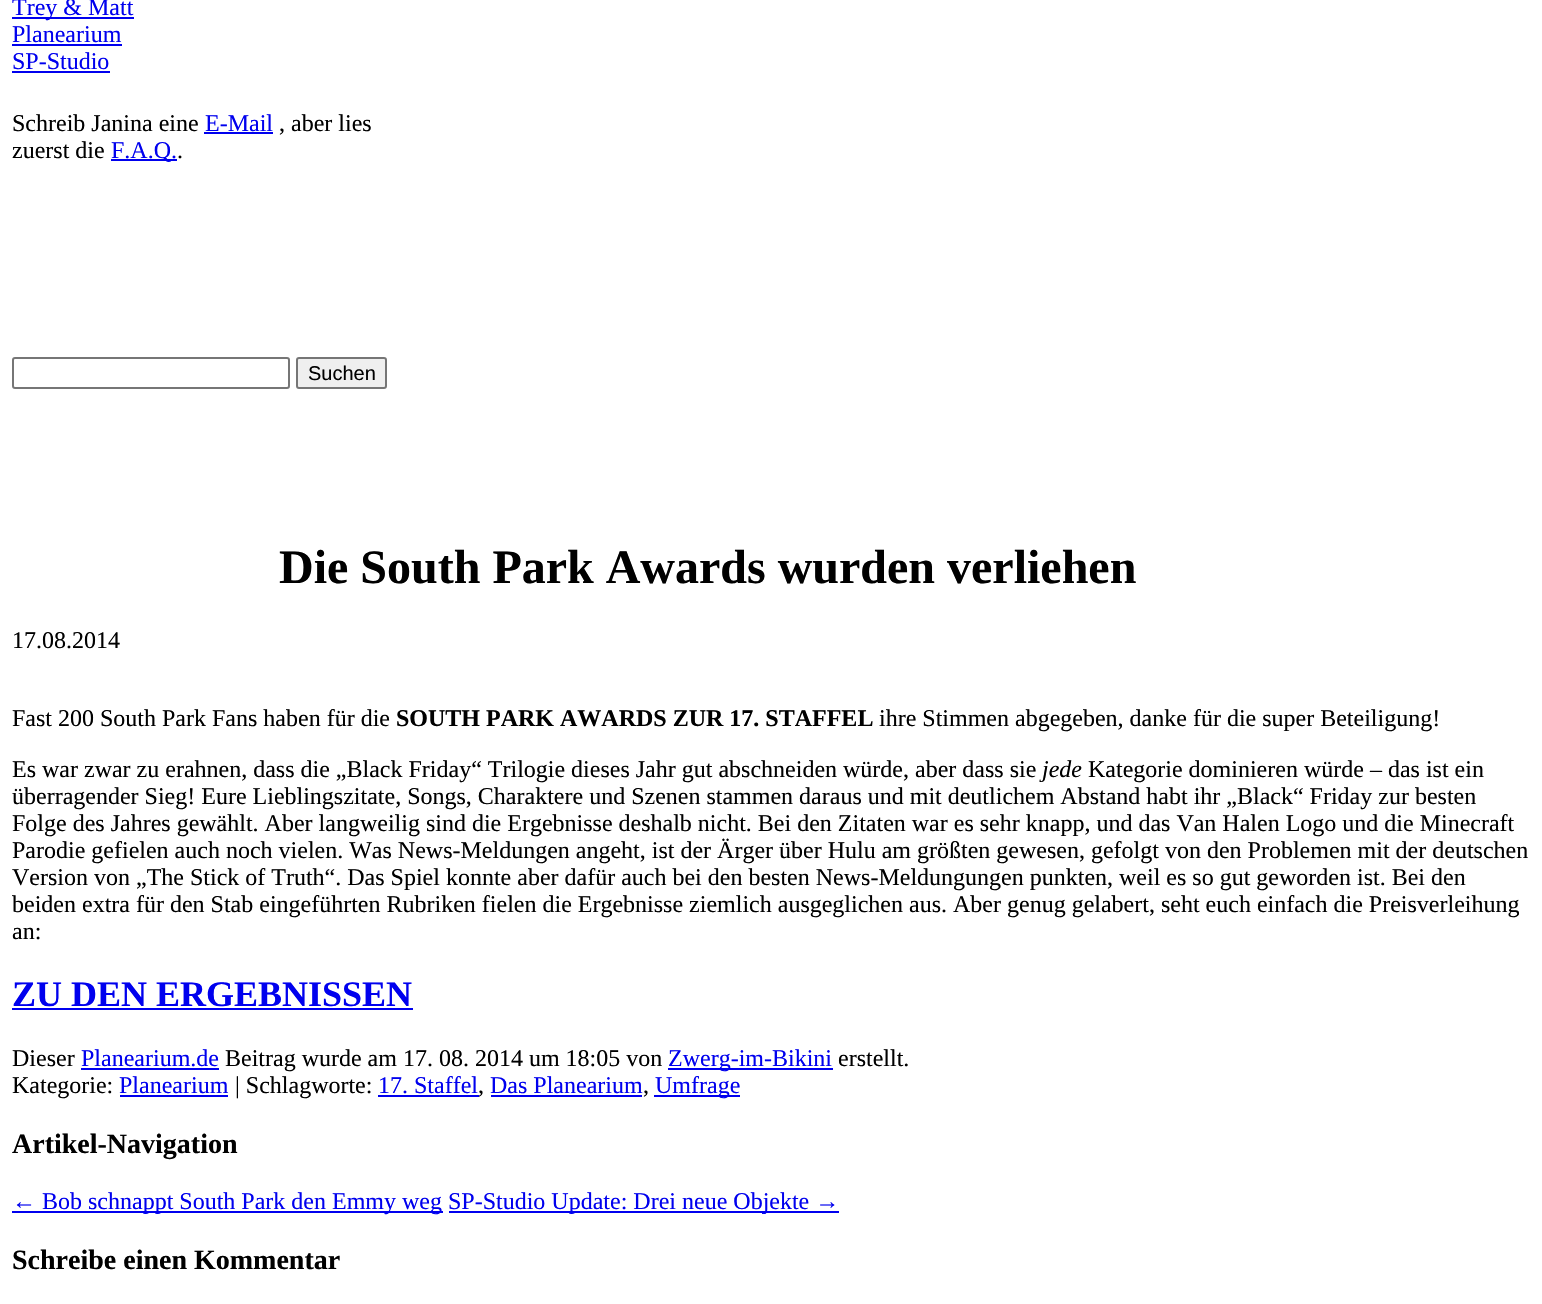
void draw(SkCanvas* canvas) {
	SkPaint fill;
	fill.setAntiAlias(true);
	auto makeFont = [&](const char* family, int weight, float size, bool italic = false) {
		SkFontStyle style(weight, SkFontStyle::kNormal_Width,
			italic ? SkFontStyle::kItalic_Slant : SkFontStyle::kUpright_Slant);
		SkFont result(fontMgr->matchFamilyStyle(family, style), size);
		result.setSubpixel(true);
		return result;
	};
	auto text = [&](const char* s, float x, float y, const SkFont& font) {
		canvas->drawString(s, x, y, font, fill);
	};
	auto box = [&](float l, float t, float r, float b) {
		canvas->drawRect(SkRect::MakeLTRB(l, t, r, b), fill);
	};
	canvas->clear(0xFFFFFFFF);
	fill.setColor(0xFF0000EE);
	box(12, 17, 134, 19);
	box(12, 44, 122, 46);
	box(12, 71, 110, 73);
	box(204, 132, 273, 134);
	box(111, 159, 177, 161);
	fill.setStyle(SkPaint::kStroke_Style);
	fill.setStrokeWidth(2);
	fill.setColor(0xFF767676);
	canvas->drawRoundRect(SkRect::MakeLTRB(13, 358, 289, 388), 2, 2, fill);
	fill.setStyle(SkPaint::kFill_Style);
	fill.setColor(0xFFEFEFEF);
	canvas->drawRoundRect(SkRect::MakeLTRB(297, 358, 386, 388), 2, 2, fill);
	fill.setStyle(SkPaint::kStroke_Style);
	fill.setColor(0xFF767676);
	canvas->drawRoundRect(SkRect::MakeLTRB(297, 358, 386, 388), 2, 2, fill);
	fill.setStyle(SkPaint::kFill_Style);
	fill.setColor(0xFF0000EE);
	box(12, 1008, 413, 1010);
	box(81, 1068, 219, 1070);
	box(668, 1068, 833, 1070);
	box(120, 1095, 228, 1097);
	box(378, 1095, 479, 1097);
	box(491, 1095, 642, 1097);
	box(654, 1095, 740, 1097);
	box(12, 1211, 443, 1213);
	box(449, 1211, 839, 1213);
	auto font1 = makeFont("Liberation Serif", 400, 24);
	text("Trey & Matt", 12, 15, font1);
	text("Planearium", 12, 42, font1);
	text("SP-Studio", 12, 69, font1);
	fill.setColor(0xFF000000);
	text("Schreib Janina eine", 12, 131, font1);
	fill.setColor(0xFF0000EE);
	text("E-Mail", 205, 131, font1);
	fill.setColor(0xFF000000);
	text(", aber lies", 279, 131, font1);
	text("zuerst die", 12, 158, font1);
	fill.setColor(0xFF0000EE);
	text("F.A.Q.", 111, 158, font1);
	fill.setColor(0xFF000000);
	text(".", 177, 158, font1);
	auto font2 = makeFont("Liberation Sans", 400, 20);
	text("Suchen", 308, 380, font2);
	auto font3 = makeFont("Liberation Serif", 700, 48);
	text("Die South Park Awards wurden verliehen", 279, 583, font3);
	text("17.08.2014", 12, 648, font1);
	text("Fast 200 South Park Fans haben für die", 12, 726, font1);
	auto font4 = makeFont("Liberation Serif", 700, 24);
	text("SOUTH PARK AWARDS ZUR 17. STAFFEL", 396, 726, font4);
	text("ihre Stimmen abgegeben, danke für die super Beteiligung!", 879, 726, font1);
	text("Es war zwar zu erahnen, dass die „Black Friday“ Trilogie dieses Jahr gut abschneiden würde, aber dass sie", 12, 777, font1);
	auto font5 = makeFont("Liberation Serif", 400, 24, true);
	text("jede", 1042, 777, font5);
	text("Kategorie dominieren würde – das ist ein", 1088, 777, font1);
	text("überragender Sieg! Eure Lieblingszitate, Songs, Charaktere und Szenen stammen daraus und mit deutlichem Abstand habt ihr „Black“ Friday zur besten", 12, 804, font1);
	text("Folge des Jahres gewählt. Aber langweilig sind die Ergebnisse deshalb nicht. Bei den Zitaten war es sehr knapp, und das Van Halen Logo und die Minecraft", 12, 831, font1);
	text("Parodie gefielen auch noch vielen. Was News-Meldungen angeht, ist der Ärger über Hulu am größten gewesen, gefolgt von den Problemen mit der deutschen", 12, 858, font1);
	text("Version von „The Stick of Truth“. Das Spiel konnte aber dafür auch bei den besten News-Meldungungen punkten, weil es so gut geworden ist. Bei den", 12, 885, font1);
	text("beiden extra für den Stab eingeführten Rubriken fielen die Ergebnisse ziemlich ausgeglichen aus. Aber genug gelabert, seht euch einfach die Preisverleihung", 12, 912, font1);
	text("an:", 12, 939, font1);
	auto font6 = makeFont("Liberation Serif", 700, 36);
	fill.setColor(0xFF0000EE);
	text("ZU DEN ERGEBNISSEN", 12, 1006, font6);
	fill.setColor(0xFF000000);
	text("Dieser", 12, 1066, font1);
	fill.setColor(0xFF0000EE);
	text("Planearium.de", 81, 1066, font1);
	fill.setColor(0xFF000000);
	text("Beitrag wurde am 17. 08. 2014 um 18:05 von", 225, 1066, font1);
	fill.setColor(0xFF0000EE);
	text("Zwerg-im-Bikini", 668, 1066, font1);
	fill.setColor(0xFF000000);
	text("erstellt.", 838, 1066, font1);
	text("Kategorie:", 12, 1093, font1);
	fill.setColor(0xFF0000EE);
	text("Planearium", 119, 1093, font1);
	fill.setColor(0xFF000000);
	text("| Schlagworte:", 235, 1093, font1);
	fill.setColor(0xFF0000EE);
	text("17. Staffel", 378, 1093, font1);
	fill.setColor(0xFF000000);
	text(",", 478, 1093, font1);
	fill.setColor(0xFF0000EE);
	text("Das Planearium", 490, 1093, font1);
	fill.setColor(0xFF000000);
	text(",", 643, 1093, font1);
	fill.setColor(0xFF0000EE);
	text("Umfrage", 655, 1093, font1);
	auto font7 = makeFont("Liberation Serif", 700, 28);
	fill.setColor(0xFF000000);
	text("Artikel-Navigation", 12, 1153, font7);
	fill.setColor(0xFF0000EE);
	text("← Bob schnappt South Park den Emmy weg", 12, 1209, font1);
	text("SP-Studio Update: Drei neue Objekte →", 448, 1209, font1);
	fill.setColor(0xFF000000);
	text("Schreibe einen Kommentar", 12, 1269, font7);
}
